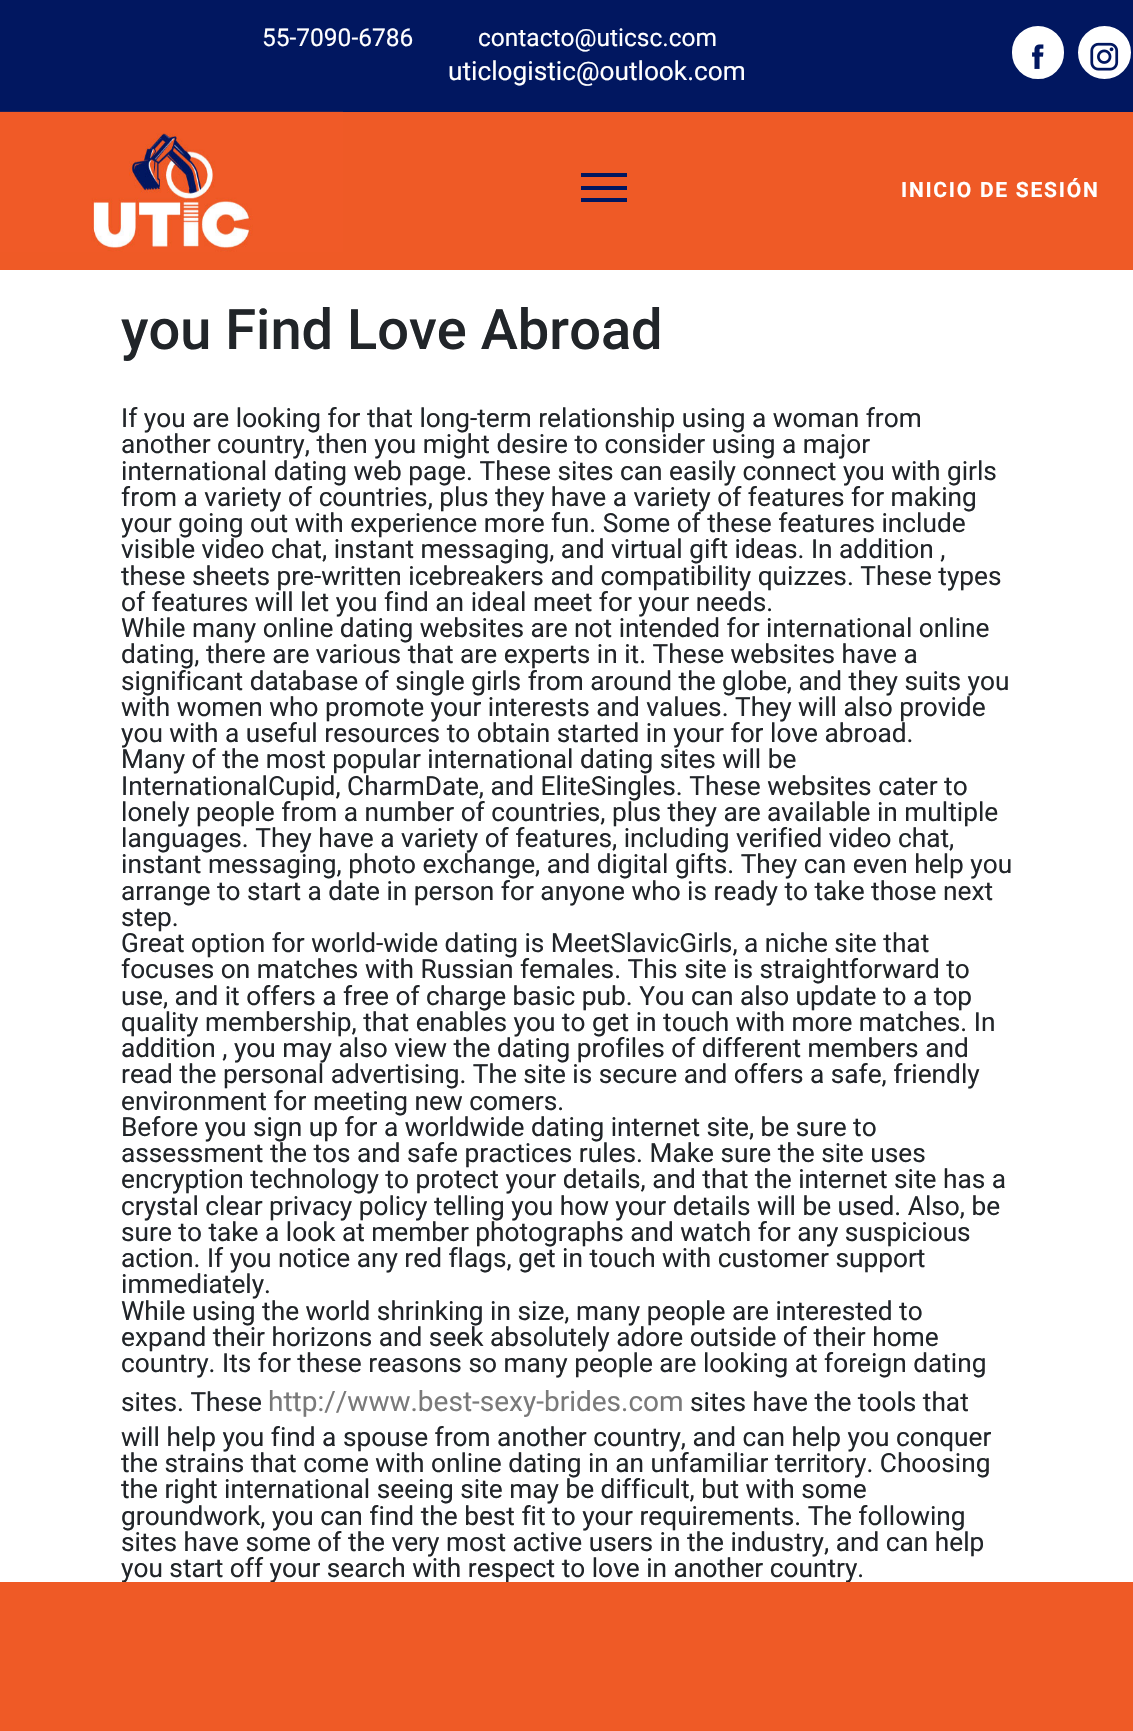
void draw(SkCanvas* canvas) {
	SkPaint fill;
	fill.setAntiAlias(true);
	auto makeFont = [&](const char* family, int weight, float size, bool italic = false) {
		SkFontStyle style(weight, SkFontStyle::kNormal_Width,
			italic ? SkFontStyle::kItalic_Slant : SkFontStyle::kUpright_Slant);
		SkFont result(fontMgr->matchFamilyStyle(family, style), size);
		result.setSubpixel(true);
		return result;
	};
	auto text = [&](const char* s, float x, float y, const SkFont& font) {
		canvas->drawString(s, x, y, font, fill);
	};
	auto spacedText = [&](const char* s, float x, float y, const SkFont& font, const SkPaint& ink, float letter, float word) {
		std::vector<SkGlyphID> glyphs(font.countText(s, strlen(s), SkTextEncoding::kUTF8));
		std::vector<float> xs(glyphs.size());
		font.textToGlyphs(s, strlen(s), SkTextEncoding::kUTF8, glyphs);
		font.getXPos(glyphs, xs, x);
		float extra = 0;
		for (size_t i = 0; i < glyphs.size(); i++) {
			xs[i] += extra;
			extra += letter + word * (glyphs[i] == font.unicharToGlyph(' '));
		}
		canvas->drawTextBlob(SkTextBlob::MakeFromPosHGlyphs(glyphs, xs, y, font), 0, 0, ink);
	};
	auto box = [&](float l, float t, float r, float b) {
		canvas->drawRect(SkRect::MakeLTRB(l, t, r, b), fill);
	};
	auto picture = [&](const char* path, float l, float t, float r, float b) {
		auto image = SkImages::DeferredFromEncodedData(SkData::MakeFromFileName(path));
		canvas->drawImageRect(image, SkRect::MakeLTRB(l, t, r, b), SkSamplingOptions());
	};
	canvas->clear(0xFFFFFFFF);
	fill.setColor(0xFF011760);
	box(0, 0, 1133, 112);
	fill.setColor(0xFFFFFFFF);
	canvas->drawRoundRect(SkRect::MakeLTRB(1013, 27, 1063, 78), 25, 25, fill);
	fill.setStyle(SkPaint::kStroke_Style);
	fill.setStrokeWidth(2);
	canvas->drawRoundRect(SkRect::MakeLTRB(1013, 27, 1063, 78), 25, 25, fill);
	picture("image0.png", 1032, 44, 1044, 69);
	fill.setStyle(SkPaint::kFill_Style);
	canvas->drawCircle(1104.5f, 52.5f, 25.5f, fill);
	fill.setStyle(SkPaint::kStroke_Style);
	canvas->drawCircle(1104.5f, 52.5f, 25.5f, fill);
	picture("image1.png", 1090, 42, 1119, 71);
	fill.setStyle(SkPaint::kFill_Style);
	fill.setColor(0xFFEF5A26);
	box(0, 112, 1133, 270);
	picture("image2.png", 0, 111, 343, 252);
	fill.setColor(0xFF011760);
	box(581, 186, 627, 190);
	box(581, 173, 627, 177);
	box(581, 198, 627, 202);
	auto font1 = makeFont("Roboto", 400, 24.5f);
	fill.setColor(0xFFFFFFFF);
	text("55-7090-6786", 262, 46, font1);
	text("contacto@uticsc.com", 478, 46, font1);
	auto font2 = makeFont("Roboto", 400, 26.25f);
	text("uticlogistic@outlook.com", 448, 80, font2);
	auto font3 = makeFont("Roboto", 700, 21);
	spacedText("INICIO DE SESIÓN", 901, 197, font3, fill, 1.75f, 0);
	auto font4 = makeFont("Roboto", 500, 56);
	fill.setColor(0xFF212529);
	text("you Find Love Abroad", 121, 349, font4);
	text("If you are looking for that long-term relationship using a woman from", 121, 427, font2);
	text("another country, then you might desire to consider using a major", 121, 453, font2);
	text("international dating web page. These sites can easily connect you with girls", 121, 480, font2);
	text("from a variety of countries, plus they have a variety of features for making", 121, 506, font2);
	text("your going out with experience more fun. Some of these features include", 121, 532, font2);
	text("visible video chat, instant messaging, and virtual gift ideas. In addition ,", 121, 558, font2);
	text("these sheets pre-written icebreakers and compatibility quizzes. These types", 121, 585, font2);
	text("of features will let you find an ideal meet for your needs.", 121, 611, font2);
	text("While many online dating websites are not intended for international online", 121, 637, font2);
	text("dating, there are various that are experts in it. These websites have a", 121, 663, font2);
	text("significant database of single girls from around the globe, and they suits you", 121, 690, font2);
	text("with women who promote your interests and values. They will also provide", 121, 716, font2);
	text("you with a useful resources to obtain started in your for love abroad.", 121, 742, font2);
	text("Many of the most popular international dating sites will be", 121, 768, font2);
	text("InternationalCupid, CharmDate, and EliteSingles. These websites cater to", 121, 795, font2);
	text("lonely people from a number of countries, plus they are available in multiple", 121, 821, font2);
	text("languages. They have a variety of features, including verified video chat,", 121, 847, font2);
	text("instant messaging, photo exchange, and digital gifts. They can even help you", 121, 873, font2);
	text("arrange to start a date in person for anyone who is ready to take those next", 121, 900, font2);
	text("step.", 121, 926, font2);
	text("Great option for world-wide dating is MeetSlavicGirls, a niche site that", 121, 952, font2);
	text("focuses on matches with Russian females. This site is straightforward to", 121, 978, font2);
	text("use, and it offers a free of charge basic pub. You can also update to a top", 121, 1005, font2);
	text("quality membership, that enables you to get in touch with more matches. In", 121, 1031, font2);
	text("addition , you may also view the dating profiles of different members and", 121, 1057, font2);
	text("read the personal advertising. The site is secure and offers a safe, friendly", 121, 1083, font2);
	text("environment for meeting new comers.", 121, 1110, font2);
	text("Before you sign up for a worldwide dating internet site, be sure to", 121, 1136, font2);
	text("assessment the tos and safe practices rules. Make sure the site uses", 121, 1162, font2);
	text("encryption technology to protect your details, and that the internet site has a", 121, 1188, font2);
	text("crystal clear privacy policy telling you how your details will be used. Also, be", 121, 1215, font2);
	text("sure to take a look at member photographs and watch for any suspicious", 121, 1241, font2);
	text("action. If you notice any red flags, get in touch with customer support", 121, 1267, font2);
	text("immediately.", 121, 1293, font2);
	text("While using the world shrinking in size, many people are interested to", 121, 1320, font2);
	text("expand their horizons and seek absolutely adore outside of their home", 121, 1346, font2);
	text("country. Its for these reasons so many people are looking at foreign dating", 121, 1372, font2);
	text("sites. These", 121, 1411, font2);
	auto font5 = makeFont("Roboto", 400, 28);
	fill.setColor(0xFF7A7A7A);
	text("http://www.best-sexy-brides.com", 268, 1411, font5);
	fill.setColor(0xFF212529);
	text("sites have the tools that", 690, 1411, font2);
	text("will help you find a spouse from another country, and can help you conquer", 121, 1446, font2);
	text("the strains that come with online dating in an unfamiliar territory. Choosing", 121, 1472, font2);
	text("the right international seeing site may be difficult, but with some", 121, 1498, font2);
	text("groundwork, you can find the best fit to your requirements. The following", 121, 1525, font2);
	text("sites have some of the very most active users in the industry, and can help", 121, 1551, font2);
	text("you start off your search with respect to love in another country.", 121, 1577, font2);
	fill.setColor(0xFFEF5A26);
	box(0, 1582, 1133, 1731);
}
